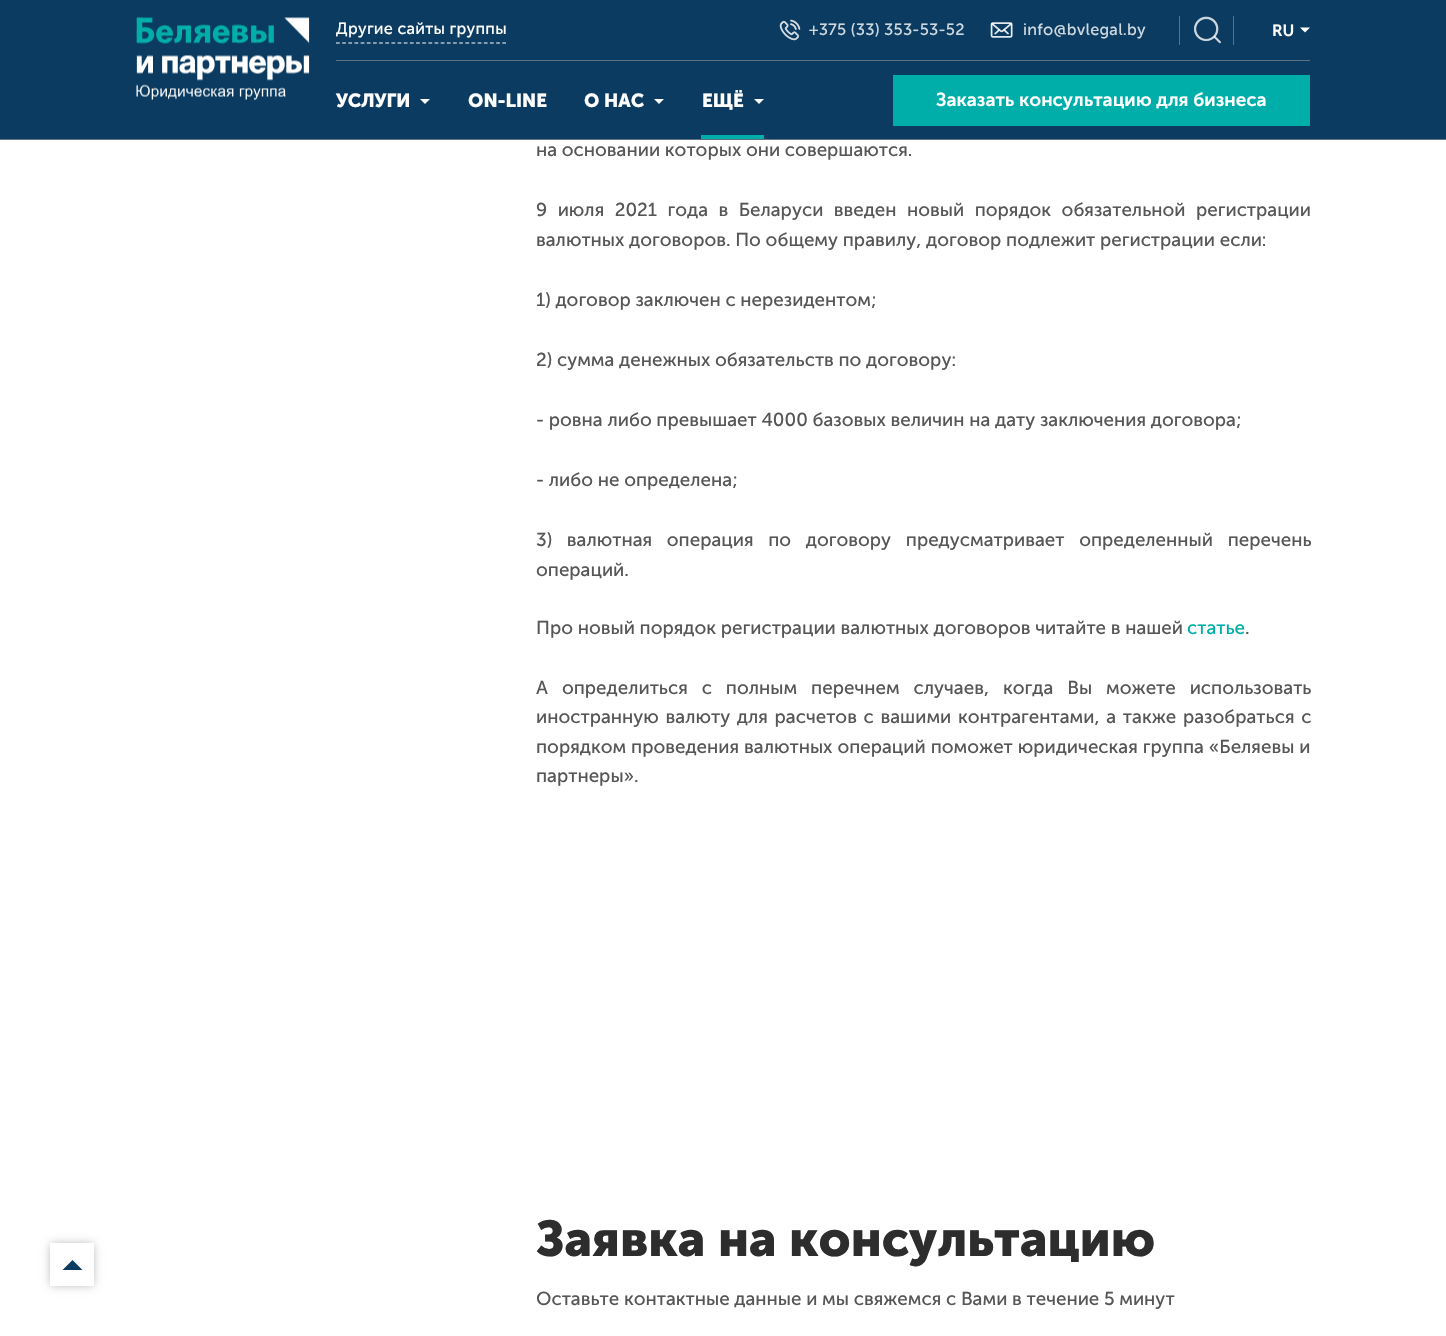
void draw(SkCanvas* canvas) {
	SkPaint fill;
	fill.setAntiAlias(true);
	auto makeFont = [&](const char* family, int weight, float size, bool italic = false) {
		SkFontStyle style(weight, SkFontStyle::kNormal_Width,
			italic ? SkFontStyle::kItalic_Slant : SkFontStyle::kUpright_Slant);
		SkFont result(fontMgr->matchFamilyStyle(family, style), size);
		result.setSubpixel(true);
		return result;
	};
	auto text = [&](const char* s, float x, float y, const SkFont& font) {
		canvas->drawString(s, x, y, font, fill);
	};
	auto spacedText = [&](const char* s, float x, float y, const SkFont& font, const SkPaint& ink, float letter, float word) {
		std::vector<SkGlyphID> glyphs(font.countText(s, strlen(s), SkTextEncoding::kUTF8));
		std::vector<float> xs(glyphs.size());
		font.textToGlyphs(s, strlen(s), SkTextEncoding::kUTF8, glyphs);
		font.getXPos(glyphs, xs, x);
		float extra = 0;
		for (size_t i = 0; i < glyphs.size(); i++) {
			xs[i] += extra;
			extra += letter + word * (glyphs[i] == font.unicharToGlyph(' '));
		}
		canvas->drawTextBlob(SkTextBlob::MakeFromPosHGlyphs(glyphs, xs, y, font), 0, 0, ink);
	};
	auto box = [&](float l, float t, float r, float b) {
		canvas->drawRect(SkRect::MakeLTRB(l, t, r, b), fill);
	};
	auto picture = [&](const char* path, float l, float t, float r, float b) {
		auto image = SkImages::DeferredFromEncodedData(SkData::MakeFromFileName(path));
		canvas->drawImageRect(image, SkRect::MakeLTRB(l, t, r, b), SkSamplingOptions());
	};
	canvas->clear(0xFFFFFFFF);
	fill.setColor(0x4D000000);
	fill.setMaskFilter(SkMaskFilter::MakeBlur(kNormal_SkBlurStyle, 4.5f));
	canvas->drawRect(SkRect::MakeLTRB(51, 1244, 93, 1285), fill);
	fill.setMaskFilter(nullptr);
	fill.setColor(0xFFFFFFFF);
	box(50, 1243, 94, 1286);
	fill.setColor(0xFF0B3B60);
	canvas->drawPath(SkPathBuilder().moveTo(82.5f, 1270).lineTo(62.5f, 1270).lineTo(72.5f, 1260).close().detach(), fill);
	box(0, 0, 1446, 139);
	fill.setColor(0xFF5F7281);
	box(0, 139, 1446, 140);
	picture("image0.png", 136, 17, 310, 100);
	box(336, 60, 1310, 61);
	fill.setStyle(SkPaint::kStroke_Style);
	fill.setStrokeWidth(1.2f);
	fill.setColor(0xFFFFFFFF);
	fill.setPathEffect(SkDashPathEffect::Make({{3.75f, 2.41f}}, 0));
	canvas->drawPath(SkPathBuilder().moveTo(336, 43).lineTo(506, 43).detach(), fill);
	fill.setPathEffect(nullptr);
	picture("image1.png", 779, 19, 801, 41);
	picture("image2.png", 990, 22, 1013, 38);
	fill.setStyle(SkPaint::kFill_Style);
	fill.setColor(0xFF5F7281);
	box(1179, 16, 1180, 45);
	picture("image3.png", 1194, 16, 1221, 44);
	box(1233, 16, 1234, 45);
	fill.setColor(0xFFFFFFFF);
	canvas->drawPath(SkPathBuilder().moveTo(1300, 27.5f).lineTo(1310, 27.5f).lineTo(1305, 32.5f).close().detach(), fill);
	canvas->drawPath(SkPathBuilder().moveTo(420, 99).lineTo(430, 99).lineTo(425, 104).close().detach(), fill);
	canvas->drawPath(SkPathBuilder().moveTo(654, 99).lineTo(664, 99).lineTo(659, 104).close().detach(), fill);
	fill.setColor(0xFF00AEA9);
	box(701, 135, 764, 139);
	fill.setColor(0xFFFFFFFF);
	canvas->drawPath(SkPathBuilder().moveTo(754, 99).lineTo(764, 99).lineTo(759, 104).close().detach(), fill);
	fill.setColor(0xFF00AEA9);
	box(893, 75, 1310, 126);
	canvas->save();
	canvas->clipRect(SkRect::MakeLTRB(336, 16, 506, 43));
	auto font1 = makeFont("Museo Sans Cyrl", 400, 16.25f);
	fill.setColor(0xFFFFFFFF);
	spacedText("Другие сайты группы", 336, 34, font1, fill, 0.25f, 0);
	canvas->restore();
	fill.setColor(0xFFCED8DF);
	spacedText("+375 (33) 353-53-52", 809, 35, font1, fill, 0.25f, 0);
	spacedText("info@bvlegal.by", 1023, 35, font1, fill, 0.25f, 0);
	auto font2 = makeFont("Museo Sans Cyrl", 600, 16.25f);
	fill.setColor(0xFFFFFFFF);
	text("RU", 1272, 36, font2);
	auto font3 = makeFont("Museo Sans Cyrl", 700, 18.75f);
	text("УСЛУГИ", 336, 107, font3);
	text("ON-LINE", 468, 107, font3);
	text("O НАС", 584, 107, font3);
	text("ЕЩЁ", 702, 107, font3);
	auto font4 = makeFont("Museo Sans Cyrl", 600, 18.75f);
	text("Заказать консультацию для бизнеса", 936, 106, font4);
	auto font5 = makeFont("Museo Sans Cyrl", 400, 18.75f);
	fill.setColor(0xFF565656);
	text("на основании которых они совершаются.", 536, 156, font5);
	spacedText("9 июля 2021 года в Беларуси введен новый порядок обязательной регистрации", 536, 216, font5, fill, 0, 5.75f);
	text("валютных договоров. По общему правилу, договор подлежит регистрации если:", 536, 246, font5);
	text("1) договор заключен с нерезидентом;", 536, 306, font5);
	text("2) сумма денежных обязательств по договору:", 536, 366, font5);
	text("- ровна либо превышает 4000 базовых величин на дату заключения договора;", 536, 426, font5);
	text("- либо не определена;", 536, 486, font5);
	spacedText("3) валютная операция по договору предусматривает определенный перечень", 536, 546, font5, fill, 0, 10);
	text("операций.", 536, 576, font5);
	text("Про новый порядок регистрации валютных договоров читайте в нашей", 536, 634, font5);
	fill.setColor(0xFF00AEA9);
	text("статье", 1187, 634, font5);
	fill.setColor(0xFF565656);
	text(".", 1245, 634, font5);
	spacedText("А определиться с полным перечнем случаев, когда Вы можете использовать", 536, 694, font5, fill, 0, 9.25f);
	spacedText("иностранную валюту для расчетов с вашими контрагентами, а также разобраться с", 536, 723, font5, fill, 0, 2);
	spacedText("порядком проведения валютных операций поможет юридическая группа «Беляевы и", 536, 753, font5, fill, 0, 0.25f);
	text("партнеры».", 536, 782, font5);
	auto font6 = makeFont("Museo Sans Cyrl", 700, 50);
	fill.setColor(0xFF2D2D2D);
	text("Заявка на консультацию", 536, 1256, font6);
	fill.setColor(0xFF565656);
	text("Оставьте контактные данные и мы свяжемся с Вами в течение 5 минут", 536, 1305, font5);
}
